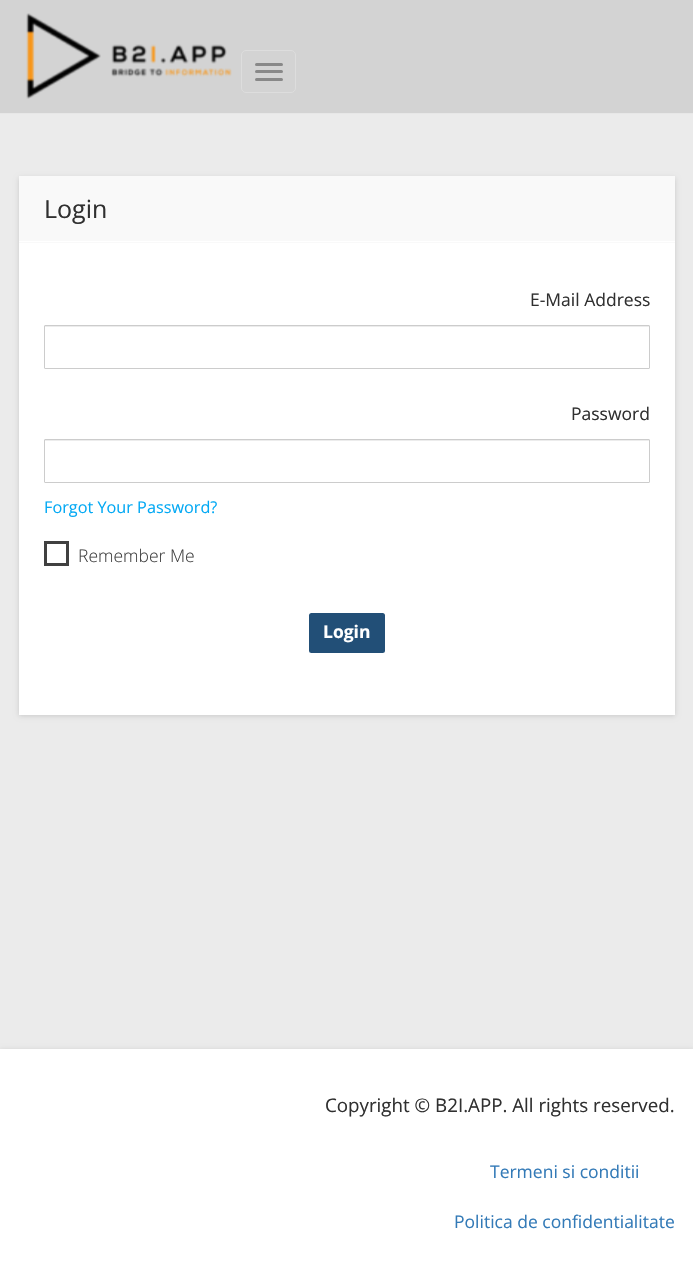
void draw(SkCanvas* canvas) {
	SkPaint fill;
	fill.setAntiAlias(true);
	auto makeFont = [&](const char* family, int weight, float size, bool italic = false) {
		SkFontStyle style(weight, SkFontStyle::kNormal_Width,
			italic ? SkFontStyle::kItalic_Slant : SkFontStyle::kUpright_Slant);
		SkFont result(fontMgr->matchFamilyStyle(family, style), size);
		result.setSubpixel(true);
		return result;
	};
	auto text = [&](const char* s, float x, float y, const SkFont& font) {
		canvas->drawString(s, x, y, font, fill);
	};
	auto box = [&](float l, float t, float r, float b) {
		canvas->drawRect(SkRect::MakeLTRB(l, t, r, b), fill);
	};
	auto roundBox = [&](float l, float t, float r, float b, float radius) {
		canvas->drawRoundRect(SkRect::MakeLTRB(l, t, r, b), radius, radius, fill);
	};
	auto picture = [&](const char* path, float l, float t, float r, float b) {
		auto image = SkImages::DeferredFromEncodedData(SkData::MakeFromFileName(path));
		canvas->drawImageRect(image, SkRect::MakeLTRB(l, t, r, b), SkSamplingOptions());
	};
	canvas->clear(0xFFEBEBEB);
	fill.setColor(0xFFD3D3D3);
	box(0, 0, 693, 113);
	fill.setColor(0xFFE7E7E7);
	box(0, 113, 693, 114);
	picture("image0.png", 26, 13, 232, 99);
	fill.setStyle(SkPaint::kStroke_Style);
	fill.setStrokeWidth(1);
	fill.setColor(0xFFDDDDDD);
	canvas->drawRoundRect(SkRect::MakeLTRB(241.5f, 50.5f, 295.5f, 92.5f), 4.5f, 4.5f, fill);
	fill.setStyle(SkPaint::kFill_Style);
	fill.setColor(0xFF888888);
	roundBox(255, 63, 283, 66, 1.5f);
	roundBox(255, 70, 283, 73, 1.5f);
	roundBox(255, 78, 283, 81, 1.5f);
	fill.setColor(0x24000000);
	fill.setMaskFilter(SkMaskFilter::MakeBlur(kNormal_SkBlurStyle, 2.5f));
	canvas->drawRect(SkRect::MakeLTRB(19, 178, 675, 716), fill);
	fill.setMaskFilter(nullptr);
	fill.setColor(0xFFFFFFFF);
	box(19, 243, 675, 715);
	fill.setColor(0xFFF9F9F9);
	box(19, 176, 675, 243);
	fill.setColor(0xFFFFFFFF);
	box(19, 241, 675, 242);
	fill.setColor(0xFFECECEC);
	box(45, 326, 649, 327);
	fill.setStyle(SkPaint::kStroke_Style);
	fill.setColor(0xFFCCCCCC);
	canvas->drawRoundRect(SkRect::MakeLTRB(44.5f, 325.5f, 649.5f, 368.5f), 0.5f, 0.5f, fill);
	fill.setStyle(SkPaint::kFill_Style);
	fill.setColor(0xFFECECEC);
	box(45, 440, 649, 441);
	fill.setStyle(SkPaint::kStroke_Style);
	fill.setColor(0xFFCCCCCC);
	canvas->drawRoundRect(SkRect::MakeLTRB(44.5f, 439.5f, 649.5f, 482.5f), 0.5f, 0.5f, fill);
	fill.setStrokeWidth(3);
	fill.setColor(0xFF404040);
	canvas->drawRect(SkRect::MakeLTRB(45.5f, 542.5f, 67.5f, 564.5f), fill);
	fill.setStyle(SkPaint::kFill_Style);
	fill.setColor(0xFF224F77);
	roundBox(309, 613, 385, 653, 2.5f);
	fill.setColor(0x24000000);
	fill.setMaskFilter(SkMaskFilter::MakeBlur(kNormal_SkBlurStyle, 2.5f));
	canvas->drawRect(SkRect::MakeLTRB(0, 1050, 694, 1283), fill);
	fill.setMaskFilter(nullptr);
	fill.setColor(0xFFFFFFFF);
	box(0, 1049, 693, 1281);
	auto font1 = makeFont("Open Sans", 400, 25);
	fill.setColor(0xFF303030);
	text("Login", 44, 218, font1);
	auto font2 = makeFont("Open Sans", 400, 17.5f);
	text("E-Mail Address", 530, 306, font2);
	text("Password", 571, 420, font2);
	auto font3 = makeFont("Open Sans", 400, 16.25f);
	fill.setColor(0xFF03A9F4);
	text("Forgot Your Password?", 44, 513, font3);
	auto font4 = makeFont("Open Sans", 300, 17.5f);
	fill.setColor(0xFF404040);
	text("Remember Me", 78, 562, font4);
	auto font5 = makeFont("Open Sans", 700, 17.5f);
	fill.setColor(0xFFFFFFFF);
	text("Login", 323, 638, font5);
	auto font6 = makeFont("Open Sans", 400, 18.75f);
	fill.setColor(0xFF303030);
	text("Copyright © B2I.APP. All rights reserved.", 325, 1112, font6);
	fill.setColor(0xFF337AB7);
	text("Termeni si conditii", 490, 1178, font2);
	text("Politica de confidentialitate", 454, 1228, font2);
}
